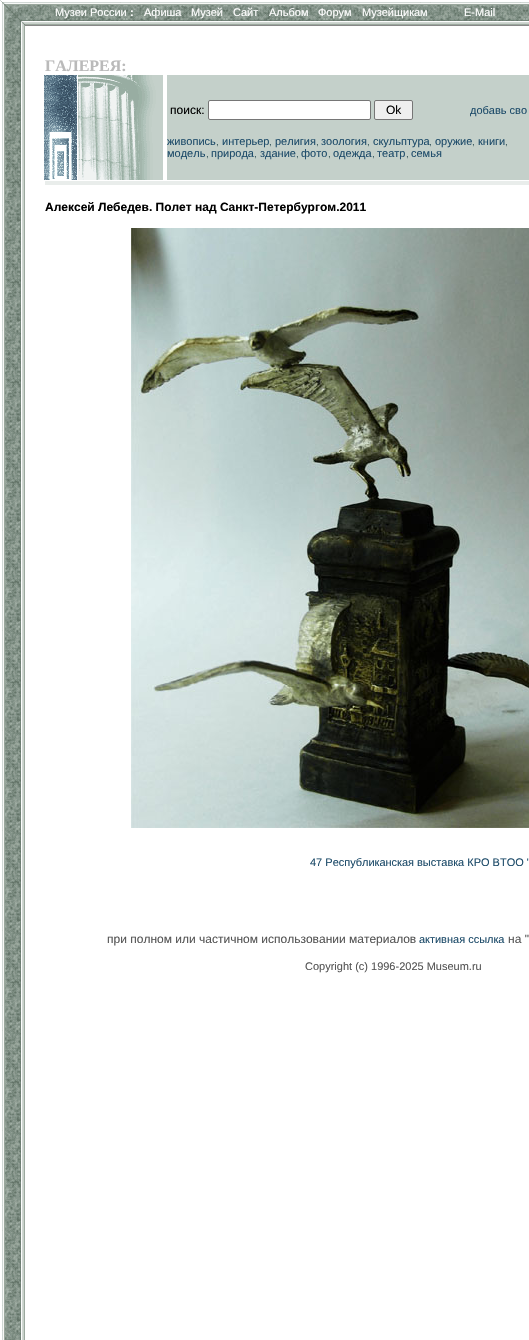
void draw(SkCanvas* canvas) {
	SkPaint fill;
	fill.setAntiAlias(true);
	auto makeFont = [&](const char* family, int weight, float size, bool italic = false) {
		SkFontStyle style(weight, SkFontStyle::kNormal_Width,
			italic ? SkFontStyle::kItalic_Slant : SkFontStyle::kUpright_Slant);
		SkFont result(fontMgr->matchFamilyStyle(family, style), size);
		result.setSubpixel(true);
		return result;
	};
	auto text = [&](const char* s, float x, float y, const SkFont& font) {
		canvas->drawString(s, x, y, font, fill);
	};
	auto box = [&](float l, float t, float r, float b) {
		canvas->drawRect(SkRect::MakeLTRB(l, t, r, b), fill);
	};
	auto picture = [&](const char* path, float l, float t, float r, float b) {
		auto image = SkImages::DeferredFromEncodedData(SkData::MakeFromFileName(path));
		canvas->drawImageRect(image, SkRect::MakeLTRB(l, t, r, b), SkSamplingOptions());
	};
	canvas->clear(0xFFFFFFFF);
	picture("image0.png", 2, 25, 25, 1340);
	picture("image1.png", 0, 0, 25, 25);
	picture("image2.png", 25, 0, 529, 25);
	fill.setColor(0xFF888888);
	box(25, 25, 529, 26);
	picture("image3.png", 44, 75, 77, 180);
	picture("image4.png", 78, 75, 163, 180);
	fill.setColor(0xFFC4D0CA);
	box(167, 75, 529, 180);
	fill.setColor(0xFFFFFFFF);
	canvas->drawRoundRect(SkRect::MakeLTRB(208.5f, 100.5f, 370.5f, 119.5f), 1.5f, 1.5f, fill);
	fill.setStyle(SkPaint::kStroke_Style);
	fill.setStrokeWidth(1);
	fill.setColor(0xFF767676);
	canvas->drawRoundRect(SkRect::MakeLTRB(208.5f, 100.5f, 370.5f, 119.5f), 1.5f, 1.5f, fill);
	fill.setStyle(SkPaint::kFill_Style);
	fill.setColor(0xFFEFEFEF);
	canvas->drawRoundRect(SkRect::MakeLTRB(374.5f, 100.5f, 412.5f, 119.5f), 1.5f, 1.5f, fill);
	fill.setStyle(SkPaint::kStroke_Style);
	fill.setColor(0xFF767676);
	canvas->drawRoundRect(SkRect::MakeLTRB(374.5f, 100.5f, 412.5f, 119.5f), 1.5f, 1.5f, fill);
	fill.setStyle(SkPaint::kFill_Style);
	fill.setColor(0xFFE9EDEB);
	box(45, 181, 529, 185);
	picture("image5.png", 131, 228, 529, 828);
	auto font1 = makeFont("Liberation Sans", 400, 11);
	fill.setColor(0xFFFFFFFF);
	text("Музеи России", 55, 16, font1);
	auto font2 = makeFont("Liberation Sans", 700, 11);
	text(":", 130, 16, font2);
	text("Афиша", 144, 16, font1);
	text("Музей", 191, 16, font1);
	text("Сайт", 233, 16, font1);
	text("Альбом", 269, 16, font1);
	text("Форум", 318, 16, font1);
	text("Музейщикам", 362, 16, font1);
	text("E-Mail", 464, 16, font1);
	auto font3 = makeFont("Liberation Serif", 700, 16);
	fill.setColor(0xFFBABABA);
	text("ГАЛЕРЕЯ:", 45, 71, font3);
	auto font4 = makeFont("Liberation Sans", 400, 12);
	fill.setColor(0xFF000000);
	text("поиск:", 170, 114, font4);
	text("Ok", 386, 114, font4);
	fill.setColor(0xFF1E4C6A);
	text("добавь сво", 470, 114, font1);
	text("живопись", 167, 145, font1);
	auto font5 = makeFont("Liberation Sans", 400, 10);
	fill.setColor(0xFF39595C);
	text(",", 216, 145, font5);
	fill.setColor(0xFF1E4C6A);
	text("интерьер", 222, 145, font1);
	fill.setColor(0xFF39595C);
	text(",", 269, 145, font5);
	fill.setColor(0xFF1E4C6A);
	text("религия", 275, 145, font1);
	fill.setColor(0xFF39595C);
	text(",", 316, 145, font5);
	fill.setColor(0xFF1E4C6A);
	text("зоология", 321, 145, font1);
	fill.setColor(0xFF39595C);
	text(",", 367, 145, font5);
	fill.setColor(0xFF1E4C6A);
	text("скульптура", 373, 145, font1);
	fill.setColor(0xFF39595C);
	text(",", 429, 145, font5);
	fill.setColor(0xFF1E4C6A);
	text("оружие", 435, 145, font1);
	fill.setColor(0xFF39595C);
	text(",", 472, 145, font5);
	fill.setColor(0xFF1E4C6A);
	text("книги", 478, 145, font1);
	fill.setColor(0xFF39595C);
	text(",", 505, 145, font5);
	fill.setColor(0xFF1E4C6A);
	text("модель", 167, 157, font1);
	fill.setColor(0xFF39595C);
	text(",", 206, 157, font5);
	fill.setColor(0xFF1E4C6A);
	text("природа", 211, 157, font1);
	fill.setColor(0xFF39595C);
	text(",", 254, 157, font5);
	fill.setColor(0xFF1E4C6A);
	text("здание", 260, 157, font1);
	fill.setColor(0xFF39595C);
	text(",", 296, 157, font5);
	fill.setColor(0xFF1E4C6A);
	text("фото", 301, 157, font1);
	fill.setColor(0xFF39595C);
	text(",", 328, 157, font5);
	fill.setColor(0xFF1E4C6A);
	text("одежда", 333, 157, font1);
	fill.setColor(0xFF39595C);
	text(",", 372, 157, font5);
	fill.setColor(0xFF1E4C6A);
	text("театр", 377, 157, font1);
	fill.setColor(0xFF39595C);
	text(",", 406, 157, font5);
	fill.setColor(0xFF1E4C6A);
	text("семья", 411, 157, font1);
	auto font6 = makeFont("Liberation Sans", 700, 12);
	fill.setColor(0xFF000000);
	text("Алексей Лебедев. Полет над Санкт-Петербургом.2011", 45, 211, font6);
	fill.setColor(0xFF1E4C6A);
	text("47 Республиканская выставка КРО ВТОО \"", 310, 866, font1);
	fill.setColor(0xFF555555);
	text("при полном или частичном использовании материалов", 107, 943, font4);
	fill.setColor(0xFF1E4C6A);
	text("активная ссылка", 419, 943, font1);
	fill.setColor(0xFF555555);
	text("на \"", 508, 943, font4);
	text("Copyright (c) 1996-2025 Museum.ru", 305, 970, font1);
}
